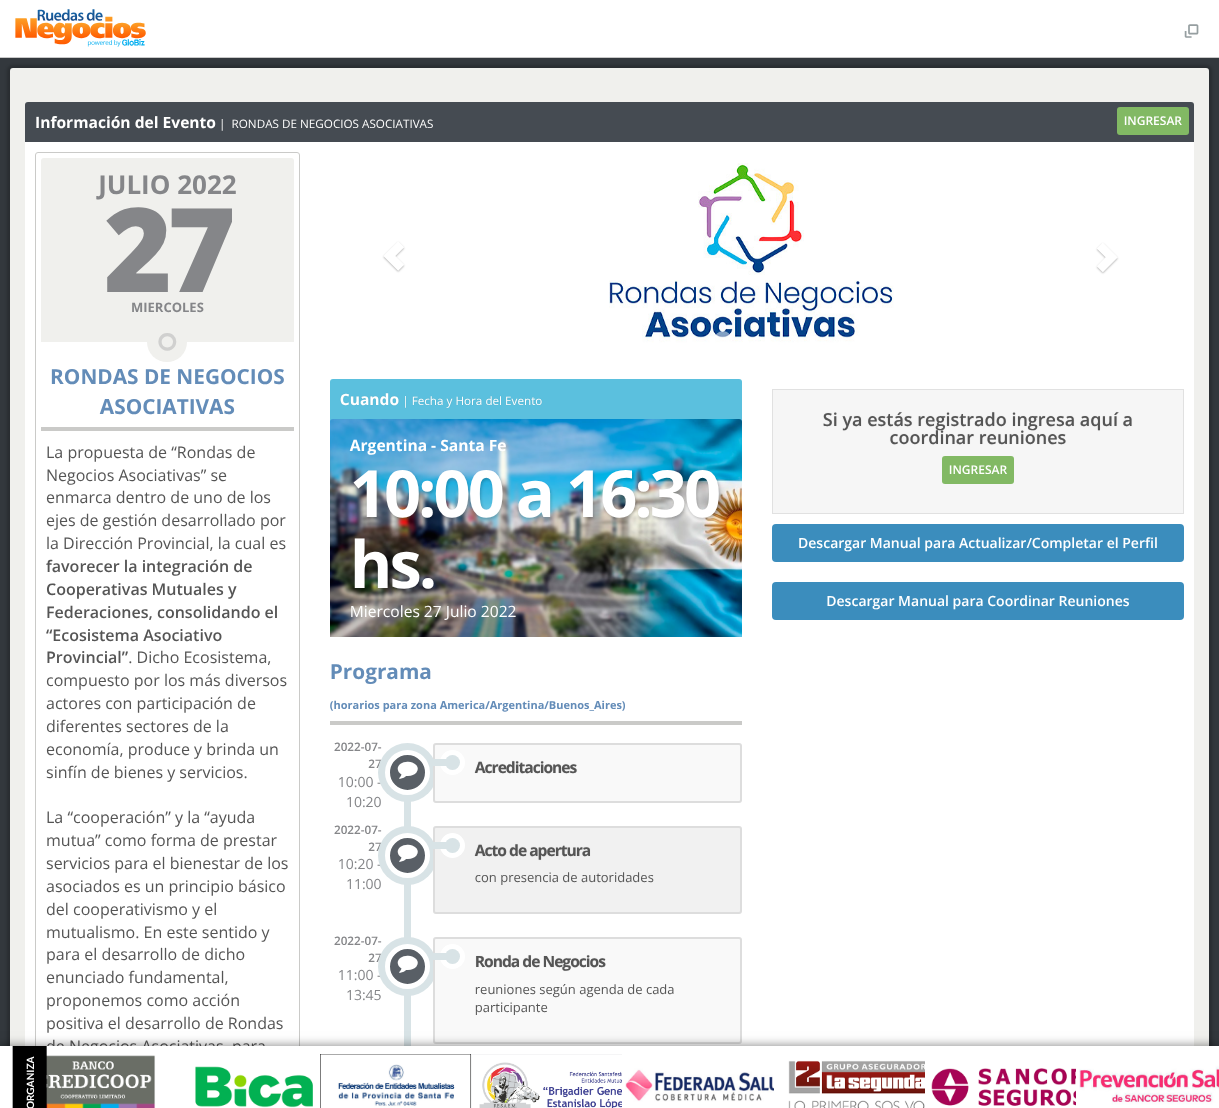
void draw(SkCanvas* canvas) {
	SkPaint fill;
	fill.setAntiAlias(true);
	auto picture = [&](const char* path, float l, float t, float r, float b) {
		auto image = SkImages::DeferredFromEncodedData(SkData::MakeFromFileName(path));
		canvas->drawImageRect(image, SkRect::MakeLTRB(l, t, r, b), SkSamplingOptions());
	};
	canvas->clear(0xFFFFFFFF);
	picture("image0.png", 0, 9, 1219, 1108);
}
